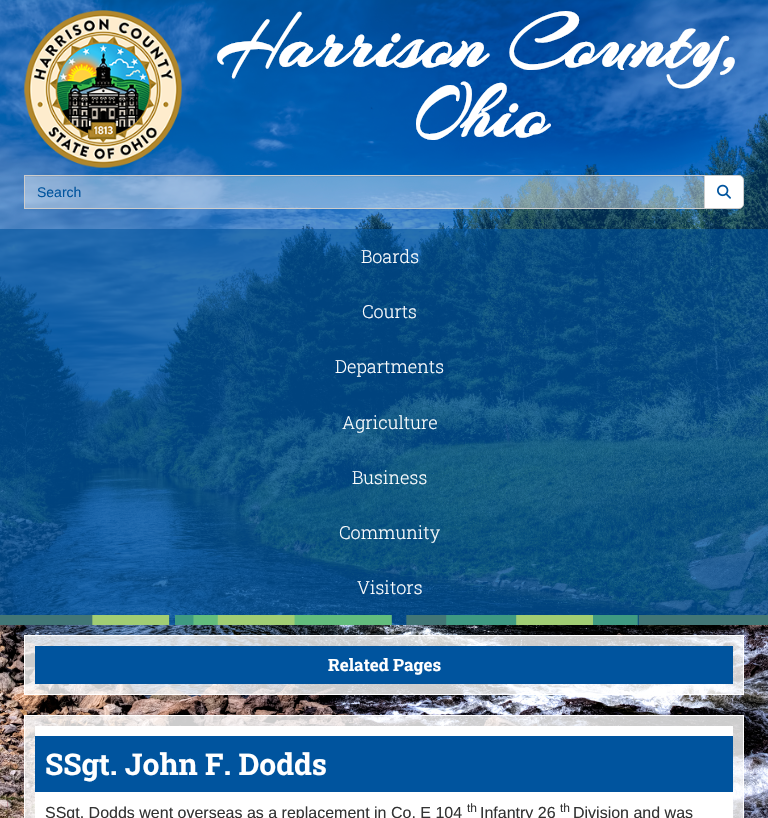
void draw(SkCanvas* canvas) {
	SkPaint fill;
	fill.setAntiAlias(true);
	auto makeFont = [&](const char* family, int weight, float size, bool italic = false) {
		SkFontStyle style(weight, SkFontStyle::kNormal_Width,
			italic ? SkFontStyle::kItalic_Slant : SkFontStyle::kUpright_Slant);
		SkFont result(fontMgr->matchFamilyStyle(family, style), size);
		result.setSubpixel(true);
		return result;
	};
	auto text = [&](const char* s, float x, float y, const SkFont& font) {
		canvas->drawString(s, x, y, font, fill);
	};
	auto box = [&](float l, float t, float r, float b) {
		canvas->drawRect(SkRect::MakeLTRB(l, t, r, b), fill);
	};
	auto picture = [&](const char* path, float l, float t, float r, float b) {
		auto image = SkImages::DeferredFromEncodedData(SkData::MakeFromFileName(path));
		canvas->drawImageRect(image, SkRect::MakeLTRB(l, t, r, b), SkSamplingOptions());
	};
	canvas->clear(0xFFFFFFFF);
	picture("image0.png", 0, 0, 768, 818);
	fill.setColor(0x8000549E);
	box(0, 0, 768, 229);
	picture("image1.png", 24, 10, 182, 168);
	fill.setColor(0x66FFFFFF);
	box(25, 176, 704, 208);
	fill.setColor(0x12000000);
	box(25, 176, 704, 177);
	fill.setStyle(SkPaint::kStroke_Style);
	fill.setStrokeWidth(1);
	fill.setColor(0xFFCCCCCC);
	canvas->drawRect(SkRect::MakeLTRB(24.5f, 175.5f, 704.5f, 208.5f), fill);
	fill.setStyle(SkPaint::kFill_Style);
	fill.setColor(0xFFFFFFFF);
	canvas->drawPath(SkPathBuilder().moveTo(704.5f, 175.5f).lineTo(739, 175.5f).cubicTo(741.5f, 175.5f, 743.5f, 177.5f, 743.5f, 180).lineTo(743.5f, 204).cubicTo(743.5f, 206.5f, 741.5f, 208.5f, 739, 208.5f).lineTo(704.5f, 208.5f).close().detach(), fill);
	fill.setStyle(SkPaint::kStroke_Style);
	fill.setColor(0xFFCCCCCC);
	canvas->drawPath(SkPathBuilder().moveTo(704.5f, 175.5f).lineTo(739, 175.5f).cubicTo(741.5f, 175.5f, 743.5f, 177.5f, 743.5f, 180).lineTo(743.5f, 204).cubicTo(743.5f, 206.5f, 741.5f, 208.5f, 739, 208.5f).lineTo(704.5f, 208.5f).close().detach(), fill);
	picture("image2.png", 717, 184, 731, 199);
	fill.setStyle(SkPaint::kFill_Style);
	fill.setColor(0xCC00549E);
	box(0, 229, 768, 625);
	picture("image3.png", 0, 615, 768, 625);
	fill.setColor(0xCCFFFFFF);
	canvas->drawRect(SkRect::MakeLTRB(24.5f, 635.5f, 743.5f, 694.5f), fill);
	fill.setStyle(SkPaint::kStroke_Style);
	fill.setColor(0xFFFFFFFF);
	canvas->drawRect(SkRect::MakeLTRB(24.5f, 635.5f, 743.5f, 694.5f), fill);
	fill.setStyle(SkPaint::kFill_Style);
	fill.setColor(0xFF00549E);
	box(35, 646, 733, 684);
	fill.setColor(0xCCFFFFFF);
	canvas->drawRect(SkRect::MakeLTRB(24.5f, 715.5f, 743.5f, 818.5f), fill);
	fill.setStyle(SkPaint::kStroke_Style);
	fill.setColor(0xFFFFFFFF);
	canvas->drawRect(SkRect::MakeLTRB(24.5f, 715.5f, 743.5f, 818.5f), fill);
	fill.setStyle(SkPaint::kFill_Style);
	box(35, 726, 733, 818);
	fill.setColor(0xFF00549E);
	box(35, 736, 733, 792);
	auto font1 = makeFont("Arizonia", 700, 80);
	fill.setColor(0xFFFFFFFF);
	text("Harrison County,", 215, 67, font1);
	text("Ohio", 409, 137, font1);
	auto font2 = makeFont("Liberation Sans", 400, 14);
	fill.setColor(0xFF00549E);
	text("Search", 37, 197, font2);
	auto font3 = makeFont("Roboto Slab", 300, 18);
	fill.setColor(0xFFFFFFFF);
	text("Boards", 361, 263, font3);
	text("Courts", 362, 318, font3);
	text("Departments", 335, 373, font3);
	text("Agriculture", 342, 429, font3);
	text("Business", 352, 484, font3);
	text("Community", 339, 539, font3);
	text("Visitors", 357, 594, font3);
	auto font4 = makeFont("Roboto Slab", 700, 17);
	text("Related Pages", 328, 671, font4);
	auto font5 = makeFont("Roboto Slab", 700, 30);
	text("SSgt. John F. Dodds", 45, 775, font5);
	auto font6 = makeFont("Liberation Sans", 400, 16);
	fill.setColor(0xFF333333);
	text("SSgt. Dodds went overseas as a replacement in Co. E 104", 45, 818, font6);
	auto font7 = makeFont("Liberation Sans", 400, 12);
	text("th", 467, 812, font7);
	text("Infantry 26", 480, 818, font6);
	text("th", 560, 812, font7);
	text("Division and was", 573, 818, font6);
}
